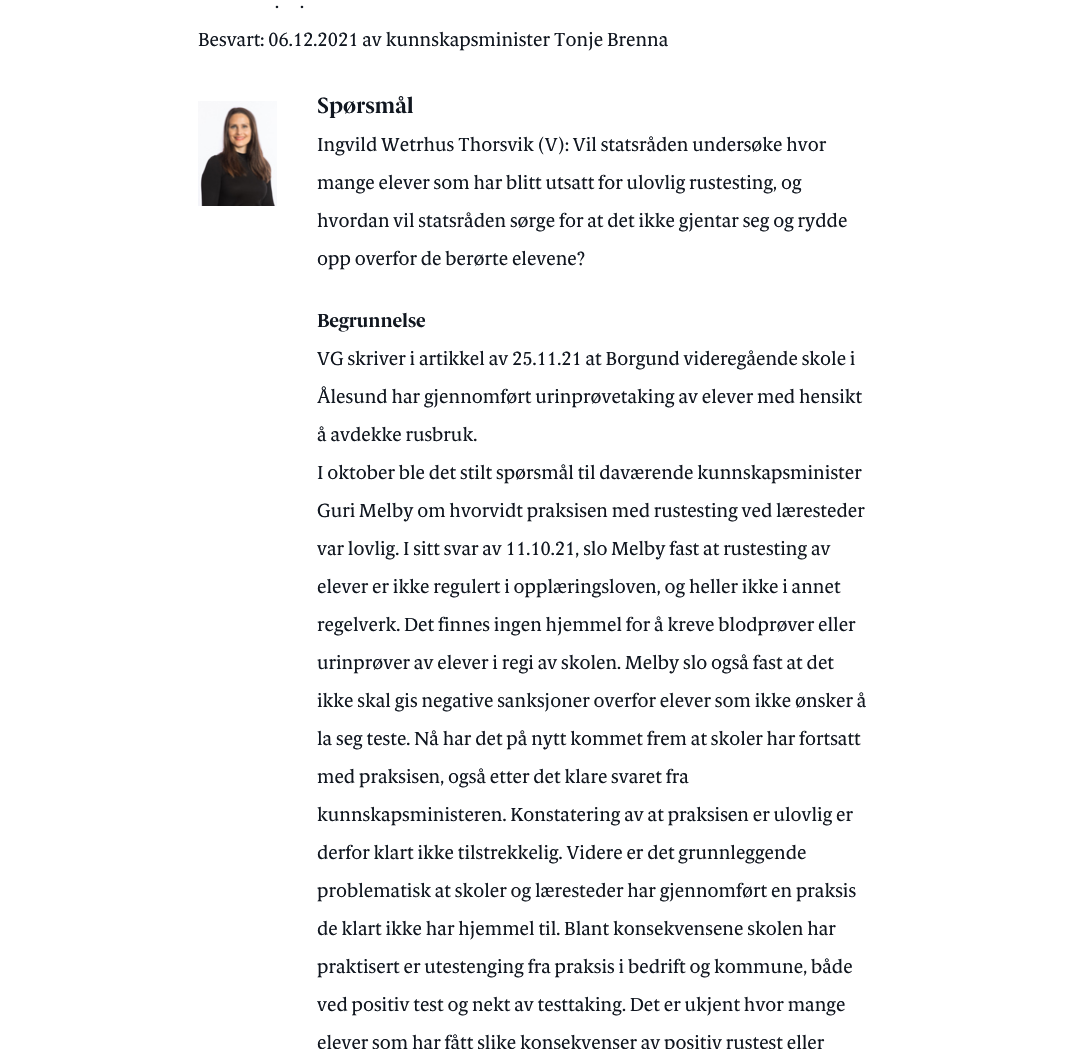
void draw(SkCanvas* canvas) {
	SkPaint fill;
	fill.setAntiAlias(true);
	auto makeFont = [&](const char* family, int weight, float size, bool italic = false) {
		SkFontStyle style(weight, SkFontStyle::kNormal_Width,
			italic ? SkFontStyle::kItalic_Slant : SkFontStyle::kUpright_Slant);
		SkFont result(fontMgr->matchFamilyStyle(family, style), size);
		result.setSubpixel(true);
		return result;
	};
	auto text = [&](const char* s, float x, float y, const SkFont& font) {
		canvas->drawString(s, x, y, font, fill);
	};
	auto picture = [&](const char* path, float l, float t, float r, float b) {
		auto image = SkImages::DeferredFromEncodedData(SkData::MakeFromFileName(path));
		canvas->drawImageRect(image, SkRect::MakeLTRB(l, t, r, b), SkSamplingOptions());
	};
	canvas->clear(0xFFFFFFFF);
	picture("image0.png", 198, 101, 277, 206);
	auto font1 = makeFont("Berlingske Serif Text", 400, 19);
	fill.setColor(0xFF111720);
	text(".", 275, 8, font1);
	text(".", 300, 8, font1);
	text("Besvart: 06.12.2021 av kunnskapsminister Tonje Brenna", 198, 46, font1);
	auto font2 = makeFont("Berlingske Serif", 700, 22);
	text("Spørsmål", 317, 113, font2);
	text("Ingvild Wetrhus Thorsvik (V): Vil statsråden undersøke hvor", 317, 151, font1);
	text("mange elever som har blitt utsatt for ulovlig rustesting, og", 317, 189, font1);
	text("hvordan vil statsråden sørge for at det ikke gjentar seg og rydde", 317, 227, font1);
	text("opp overfor de berørte elevene?", 317, 265, font1);
	auto font3 = makeFont("Berlingske Serif", 700, 19);
	text("Begrunnelse", 317, 327, font3);
	text("VG skriver i artikkel av 25.11.21 at Borgund videregående skole i", 317, 365, font1);
	text("Ålesund har gjennomført urinprøvetaking av elever med hensikt", 317, 403, font1);
	text("å avdekke rusbruk.", 317, 441, font1);
	text("I oktober ble det stilt spørsmål til daværende kunnskapsminister", 317, 479, font1);
	text("Guri Melby om hvorvidt praksisen med rustesting ved læresteder", 317, 517, font1);
	text("var lovlig. I sitt svar av 11.10.21, slo Melby fast at rustesting av", 317, 555, font1);
	text("elever er ikke regulert i opplæringsloven, og heller ikke i annet", 317, 593, font1);
	text("regelverk. Det finnes ingen hjemmel for å kreve blodprøver eller", 317, 631, font1);
	text("urinprøver av elever i regi av skolen. Melby slo også fast at det", 317, 669, font1);
	text("ikke skal gis negative sanksjoner overfor elever som ikke ønsker å", 317, 707, font1);
	text("la seg teste. Nå har det på nytt kommet frem at skoler har fortsatt", 317, 745, font1);
	text("med praksisen, også etter det klare svaret fra", 317, 783, font1);
	text("kunnskapsministeren. Konstatering av at praksisen er ulovlig er", 317, 821, font1);
	text("derfor klart ikke tilstrekkelig. Videre er det grunnleggende", 317, 859, font1);
	text("problematisk at skoler og læresteder har gjennomført en praksis", 317, 897, font1);
	text("de klart ikke har hjemmel til. Blant konsekvensene skolen har", 317, 935, font1);
	text("praktisert er utestenging fra praksis i bedrift og kommune, både", 317, 973, font1);
	text("ved positiv test og nekt av testtaking. Det er ukjent hvor mange", 317, 1011, font1);
	text("elever som har fått slike konsekvenser av positiv rustest eller", 317, 1049, font1);
}
